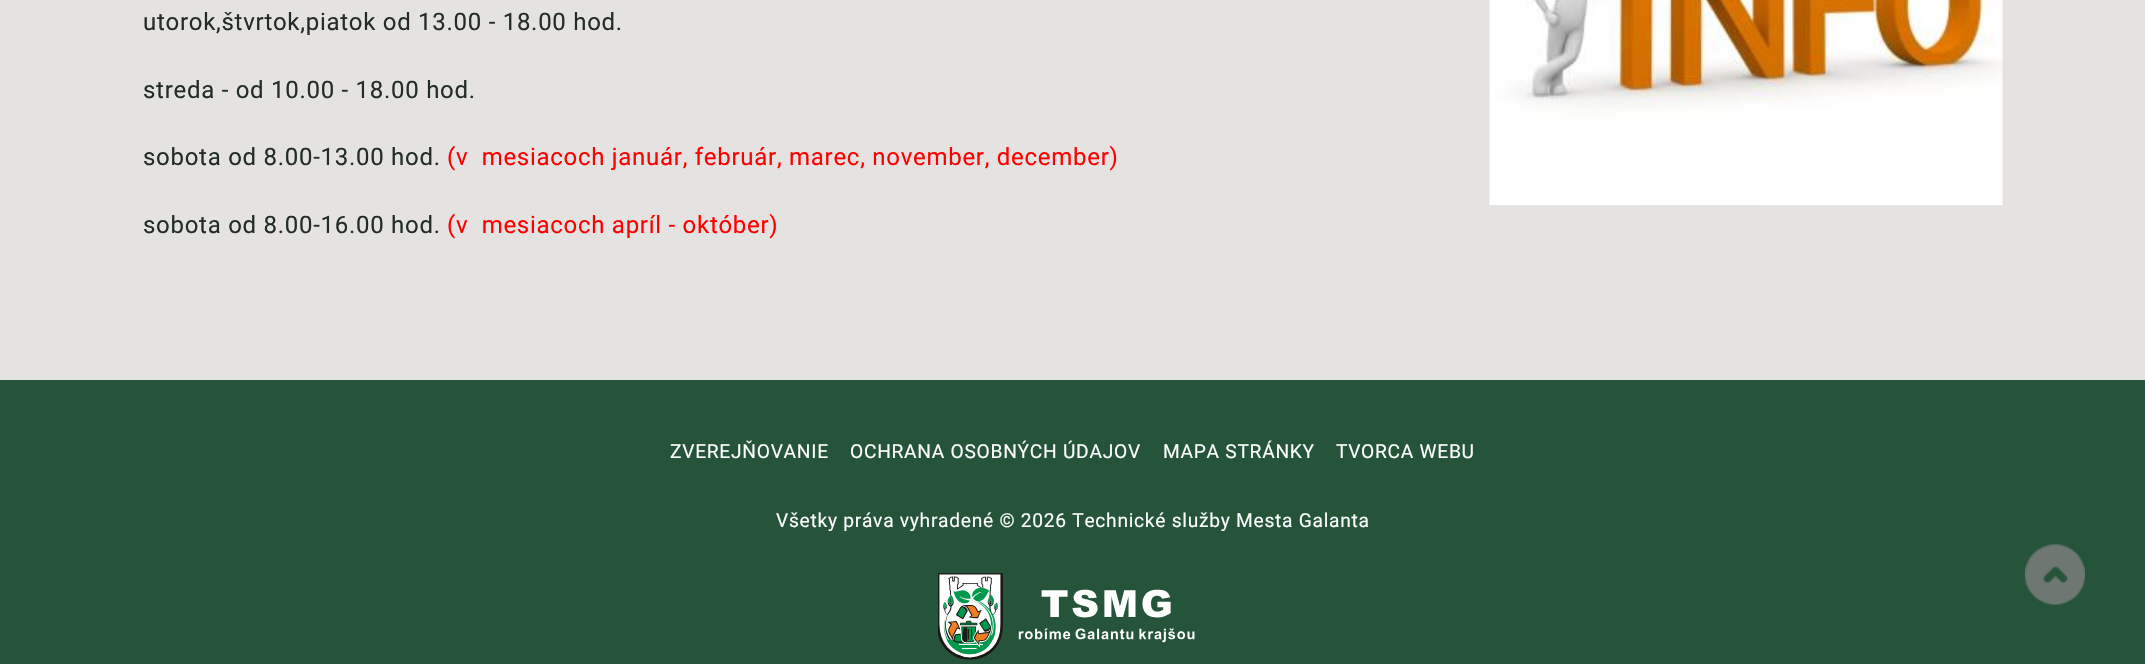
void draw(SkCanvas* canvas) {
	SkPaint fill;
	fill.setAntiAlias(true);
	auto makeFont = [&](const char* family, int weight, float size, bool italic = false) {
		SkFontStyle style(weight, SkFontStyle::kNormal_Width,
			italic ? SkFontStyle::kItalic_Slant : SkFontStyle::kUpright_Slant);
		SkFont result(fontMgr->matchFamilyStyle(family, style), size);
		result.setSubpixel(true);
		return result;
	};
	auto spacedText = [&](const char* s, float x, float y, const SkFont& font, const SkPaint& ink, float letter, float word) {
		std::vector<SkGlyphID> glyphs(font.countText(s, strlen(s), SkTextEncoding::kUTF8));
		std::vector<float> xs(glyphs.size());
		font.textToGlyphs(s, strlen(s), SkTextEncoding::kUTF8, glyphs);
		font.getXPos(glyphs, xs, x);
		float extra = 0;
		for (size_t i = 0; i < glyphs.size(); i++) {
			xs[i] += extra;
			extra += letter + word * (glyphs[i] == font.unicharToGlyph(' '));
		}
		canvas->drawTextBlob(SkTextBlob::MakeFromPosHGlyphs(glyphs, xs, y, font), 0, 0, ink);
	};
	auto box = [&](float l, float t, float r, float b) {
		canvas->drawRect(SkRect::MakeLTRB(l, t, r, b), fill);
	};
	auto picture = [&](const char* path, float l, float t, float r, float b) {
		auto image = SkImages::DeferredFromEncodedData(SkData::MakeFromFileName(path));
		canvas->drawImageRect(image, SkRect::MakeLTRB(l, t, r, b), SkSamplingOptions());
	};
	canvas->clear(0xFFE4E3E2);
	picture("image0.png", 1489, 0, 2003, 205);
	fill.setColor(0xFF26543B);
	box(0, 380, 2145, 664);
	picture("image1.png", 938, 573, 1195, 660);
	picture("image2.png", 2025, 544, 2085, 605);
	auto font1 = makeFont("Roboto", 400, 24);
	fill.setColor(0xFF232D25);
	spacedText("utorok,štvrtok,piatok od 13.00 - 18.00 hod.", 143, 30, font1, fill, 0.72f, 0);
	spacedText("streda - od 10.00 - 18.00 hod.", 143, 98, font1, fill, 0.72f, 0);
	spacedText("sobota od 8.00-13.00 hod.", 143, 165, font1, fill, 0.72f, 0);
	fill.setColor(0xFFFF0000);
	spacedText("(v  mesiacoch január, február, marec, november, december)", 447, 165, font1, fill, 0.72f, 0);
	fill.setColor(0xFF232D25);
	spacedText("sobota od 8.00-16.00 hod.", 143, 233, font1, fill, 0.72f, 0);
	fill.setColor(0xFFFF0000);
	spacedText("(v  mesiacoch apríl - október)", 447, 233, font1, fill, 0.72f, 0);
	auto font2 = makeFont("Roboto", 400, 19.2f);
	fill.setColor(0xFFFFFFFF);
	spacedText("ZVEREJŇOVANIE", 670, 458, font2, fill, 0.72f, 0);
	spacedText("OCHRANA OSOBNÝCH ÚDAJOV", 850, 458, font2, fill, 0.72f, 0);
	spacedText("MAPA STRÁNKY", 1163, 458, font2, fill, 0.72f, 0);
	spacedText("TVORCA WEBU", 1336, 458, font2, fill, 0.72f, 0);
	spacedText("Všetky práva vyhradené © 2026 Technické služby Mesta Galanta", 776, 527, font2, fill, 0.72f, 0);
}
